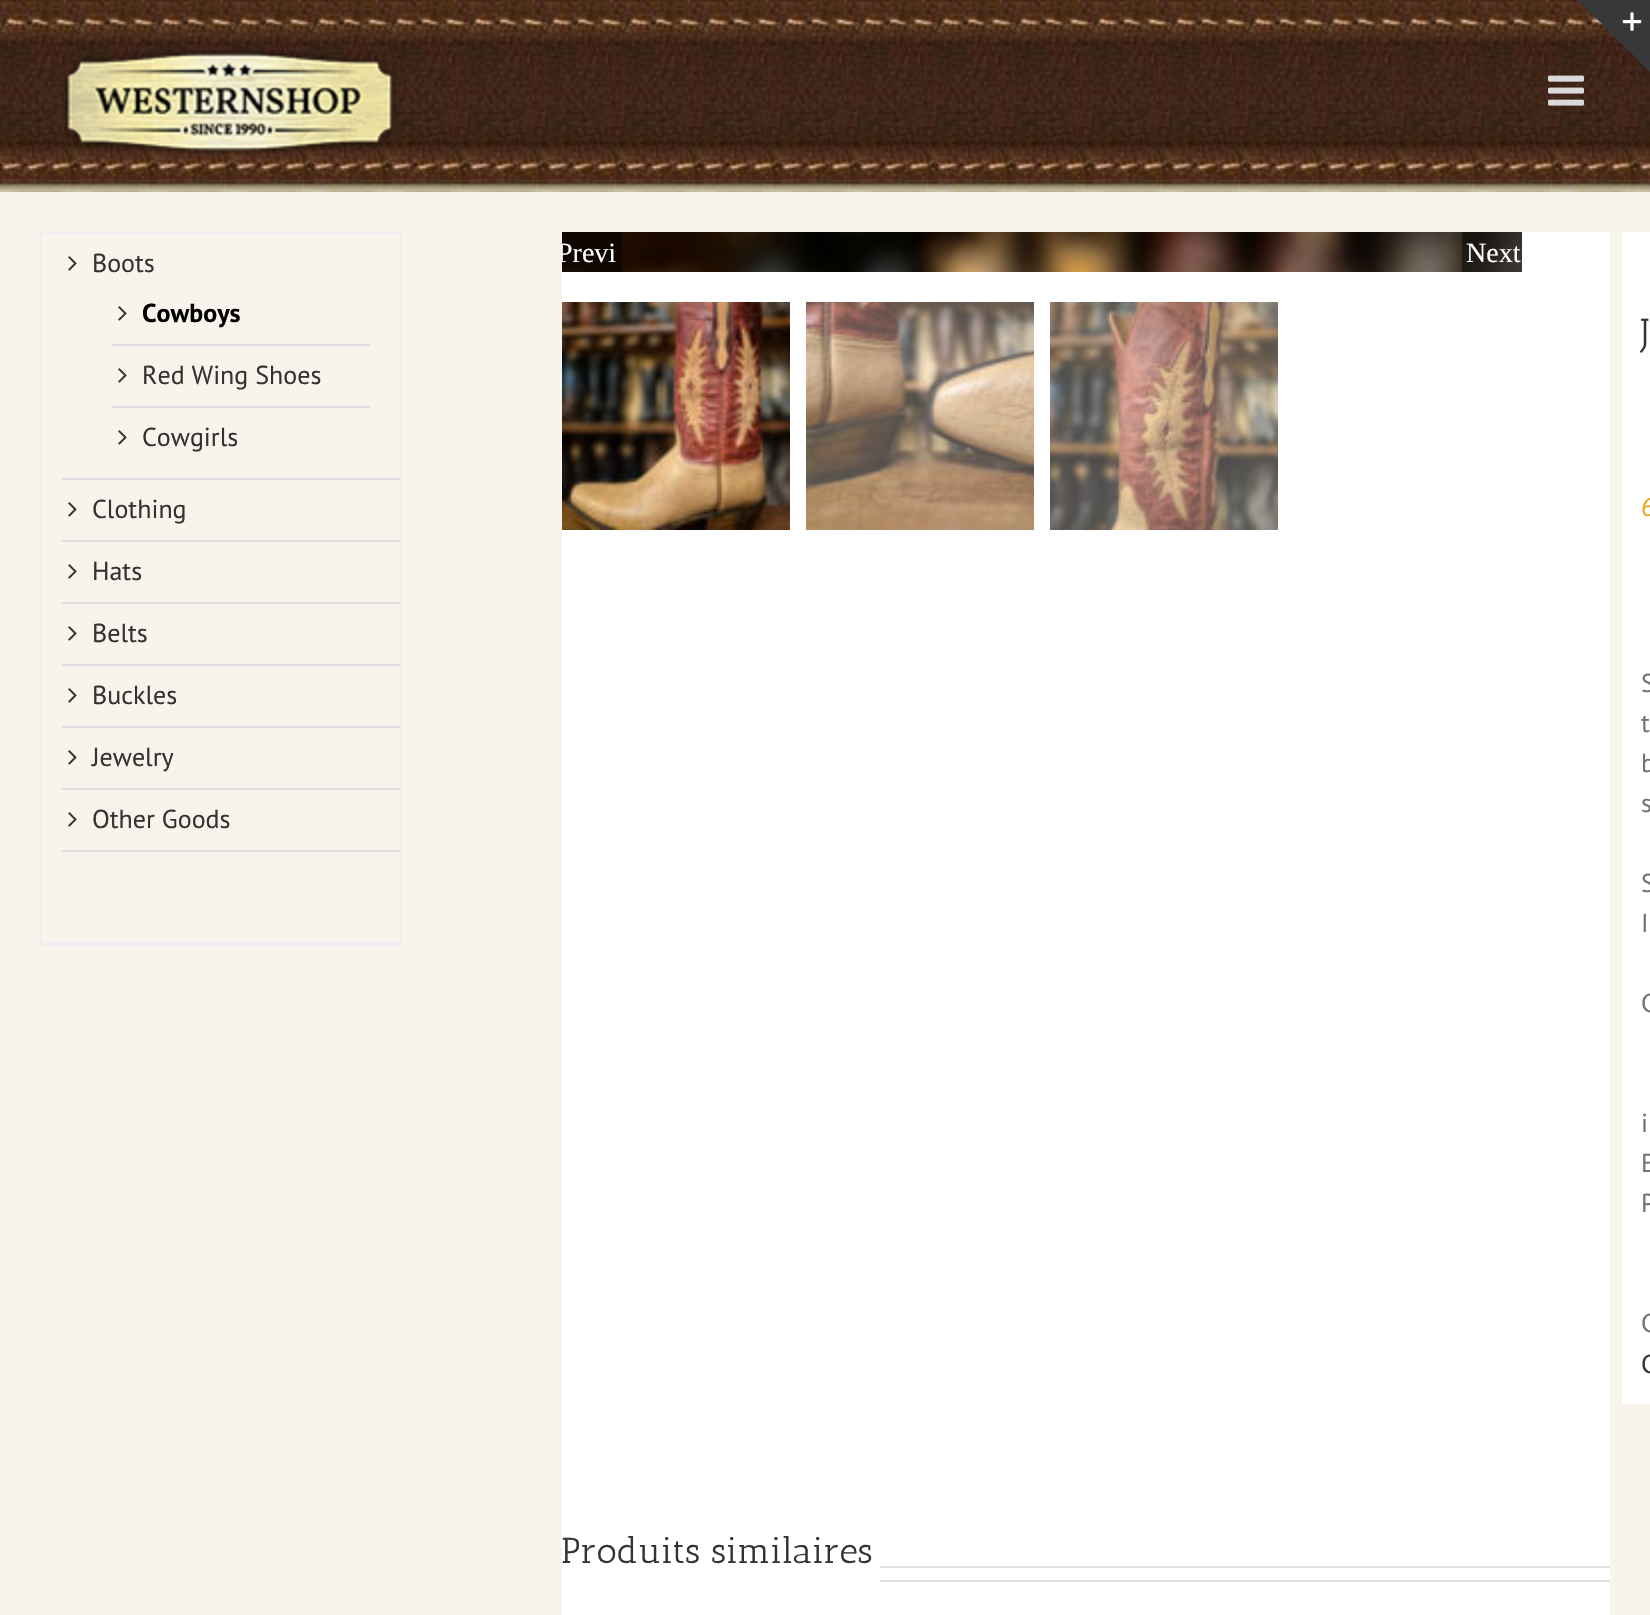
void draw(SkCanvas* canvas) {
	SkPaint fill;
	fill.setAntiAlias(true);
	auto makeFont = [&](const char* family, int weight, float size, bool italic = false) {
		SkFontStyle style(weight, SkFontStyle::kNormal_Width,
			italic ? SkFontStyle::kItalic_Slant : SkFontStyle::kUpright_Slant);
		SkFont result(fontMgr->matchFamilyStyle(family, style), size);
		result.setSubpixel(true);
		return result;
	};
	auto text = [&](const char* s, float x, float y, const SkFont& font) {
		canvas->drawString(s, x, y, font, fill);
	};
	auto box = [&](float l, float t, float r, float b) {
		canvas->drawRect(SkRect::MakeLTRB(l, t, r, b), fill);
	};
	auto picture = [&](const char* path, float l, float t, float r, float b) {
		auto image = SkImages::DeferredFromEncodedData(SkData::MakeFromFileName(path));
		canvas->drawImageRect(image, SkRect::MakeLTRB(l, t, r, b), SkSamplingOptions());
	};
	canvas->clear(0xFFF8F4EB);
	picture("image0.png", 0, 0, 1650, 192);
	picture("image1.png", 62, 50, 398, 154);
	picture("image2.png", 1548, 75, 1584, 106);
	fill.setColor(0xFF363839);
	canvas->drawPath(SkPathBuilder().moveTo(1578, 0).lineTo(1650, 0).lineTo(1650, 72).close().detach(), fill);
	picture("image3.png", 1622, 12, 1642, 31);
	fill.setColor(0xFFEFEFEF);
	box(40, 232, 402, 234);
	box(400, 232, 402, 946);
	box(40, 942, 402, 946);
	box(40, 232, 42, 946);
	fill.setColor(0xFFE0DEDE);
	box(62, 478, 400, 480);
	picture("image4.png", 68, 256, 77, 271);
	box(112, 344, 370, 346);
	picture("image4.png", 118, 306, 127, 321);
	box(112, 406, 370, 408);
	picture("image4.png", 118, 368, 127, 383);
	picture("image4.png", 118, 430, 127, 445);
	box(62, 540, 400, 542);
	picture("image4.png", 68, 502, 77, 517);
	box(62, 602, 400, 604);
	picture("image4.png", 68, 564, 77, 579);
	box(62, 664, 400, 666);
	picture("image4.png", 68, 626, 77, 641);
	box(62, 726, 400, 728);
	picture("image4.png", 68, 688, 77, 703);
	box(62, 788, 400, 790);
	picture("image4.png", 68, 750, 77, 765);
	box(62, 850, 400, 852);
	picture("image4.png", 68, 812, 77, 827);
	fill.setColor(0xFFFFFFFF);
	box(562, 232, 1610, 1615);
	picture("image5.png", 562, 232, 1522, 272);
	fill.setColor(0x80000000);
	box(562, 232, 622, 272);
	box(1462, 232, 1522, 272);
	picture("image6.png", 562, 302, 790, 530);
	picture("image7.png", 806, 302, 1034, 530);
	picture("image8.png", 1050, 302, 1278, 530);
	fill.setColor(0xFFFFFFFF);
	box(1622, 232, 1650, 1404);
	fill.setColor(0xFFE0DEDE);
	box(880, 1566, 1610, 1568);
	box(880, 1580, 1610, 1582);
	auto font1 = makeFont("PT Sans", 400, 26);
	fill.setColor(0xFF333333);
	text("Boots", 92, 272, font1);
	auto font2 = makeFont("PT Sans", 700, 26);
	fill.setColor(0xFF000000);
	text("Cowboys", 142, 322, font2);
	fill.setColor(0xFF333333);
	text("Red Wing Shoes", 142, 384, font1);
	text("Cowgirls", 142, 446, font1);
	text("Clothing", 92, 518, font1);
	text("Hats", 92, 580, font1);
	text("Belts", 92, 642, font1);
	text("Buckles", 92, 704, font1);
	text("Jewelry", 92, 766, font1);
	text("Other Goods", 92, 828, font1);
	canvas->save();
	canvas->clipRect(SkRect::MakeLTRB(562, 232, 622, 272));
	auto font3 = makeFont("Liberation Serif", 400, 28);
	fill.setColor(0xFFFFFFFF);
	text("Previ", 557, 262, font3);
	canvas->restore();
	text("Next", 1466, 262, font3);
	auto font4 = makeFont("Antic Slab", 400, 36);
	fill.setColor(0xFF333333);
	text("J", 1641, 344, font4);
	fill.setColor(0xFFE9A825);
	text("6", 1641, 516, font1);
	fill.setColor(0xFF747474);
	text("S", 1641, 692, font1);
	text("t", 1641, 732, font1);
	text("b", 1641, 772, font1);
	text("s", 1641, 812, font1);
	text("S", 1641, 892, font1);
	text("I", 1641, 932, font1);
	text("C", 1641, 1012, font1);
	text("i", 1641, 1132, font1);
	text("E", 1641, 1172, font1);
	text("P", 1641, 1212, font1);
	text("C", 1641, 1332, font1);
	fill.setColor(0xFF333333);
	text("C", 1641, 1373, font1);
	text("Produits similaires", 561, 1563, font4);
}
